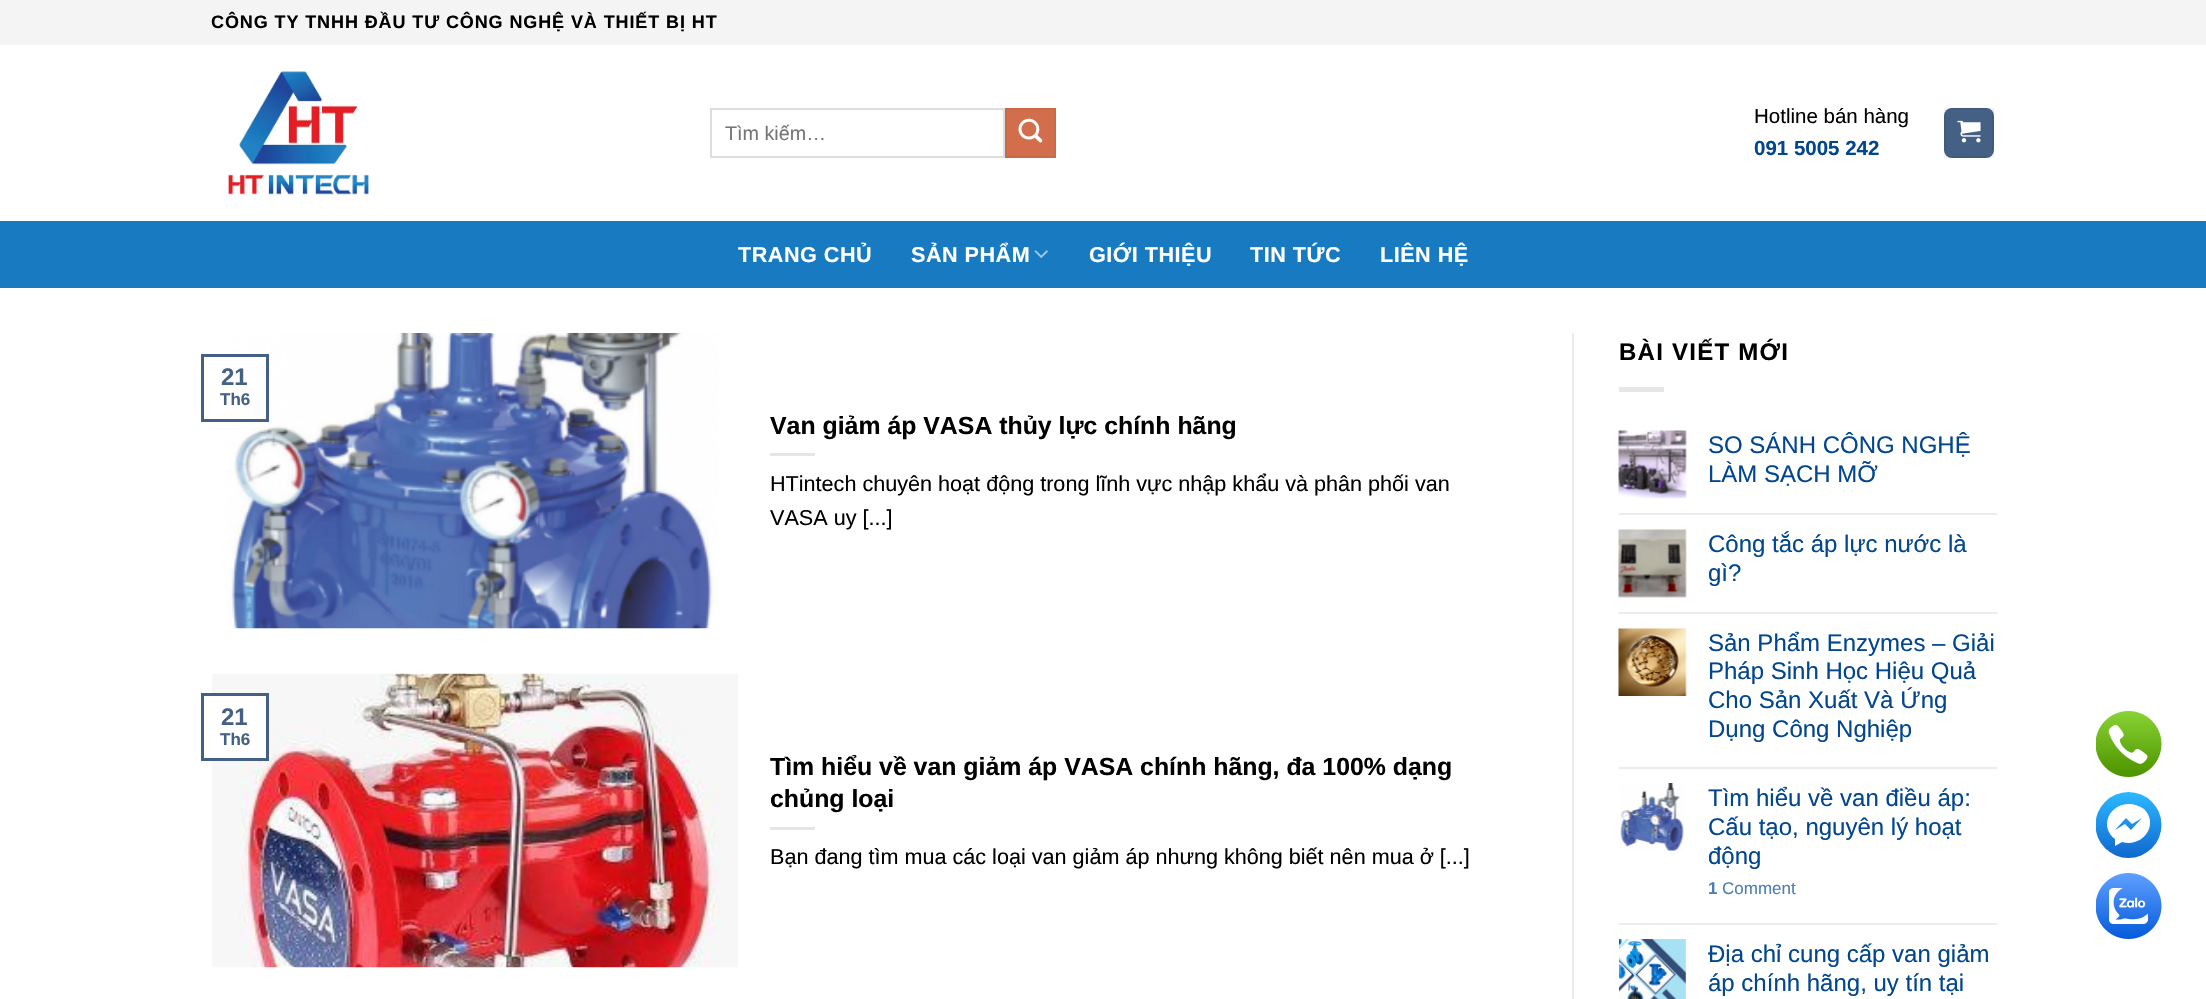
void draw(SkCanvas* canvas) {
	SkPaint fill;
	fill.setAntiAlias(true);
	auto makeFont = [&](const char* family, int weight, float size, bool italic = false) {
		SkFontStyle style(weight, SkFontStyle::kNormal_Width,
			italic ? SkFontStyle::kItalic_Slant : SkFontStyle::kUpright_Slant);
		SkFont result(fontMgr->matchFamilyStyle(family, style), size);
		result.setSubpixel(true);
		return result;
	};
	auto text = [&](const char* s, float x, float y, const SkFont& font) {
		canvas->drawString(s, x, y, font, fill);
	};
	auto spacedText = [&](const char* s, float x, float y, const SkFont& font, const SkPaint& ink, float letter, float word) {
		std::vector<SkGlyphID> glyphs(font.countText(s, strlen(s), SkTextEncoding::kUTF8));
		std::vector<float> xs(glyphs.size());
		font.textToGlyphs(s, strlen(s), SkTextEncoding::kUTF8, glyphs);
		font.getXPos(glyphs, xs, x);
		float extra = 0;
		for (size_t i = 0; i < glyphs.size(); i++) {
			xs[i] += extra;
			extra += letter + word * (glyphs[i] == font.unicharToGlyph(' '));
		}
		canvas->drawTextBlob(SkTextBlob::MakeFromPosHGlyphs(glyphs, xs, y, font), 0, 0, ink);
	};
	auto box = [&](float l, float t, float r, float b) {
		canvas->drawRect(SkRect::MakeLTRB(l, t, r, b), fill);
	};
	auto roundBox = [&](float l, float t, float r, float b, float radius) {
		canvas->drawRoundRect(SkRect::MakeLTRB(l, t, r, b), radius, radius, fill);
	};
	auto picture = [&](const char* path, float l, float t, float r, float b) {
		auto image = SkImages::DeferredFromEncodedData(SkData::MakeFromFileName(path));
		canvas->drawImageRect(image, SkRect::MakeLTRB(l, t, r, b), SkSamplingOptions());
	};
	canvas->clear(0xFFFFFFFF);
	fill.setColor(0xFFF4F4F4);
	box(0, 0, 2206, 45);
	picture("image0.png", 227, 71, 369, 196);
	fill.setStyle(SkPaint::kStroke_Style);
	fill.setStrokeWidth(2);
	fill.setColor(0xFFDDDDDD);
	canvas->drawRect(SkRect::MakeLTRB(711, 109, 1004, 157), fill);
	fill.setStyle(SkPaint::kFill_Style);
	fill.setColor(0xFFD26E4B);
	canvas->drawRect(SkRect::MakeLTRB(1006, 109, 1055, 157), fill);
	fill.setStyle(SkPaint::kStroke_Style);
	fill.setColor(0xFFC86947);
	canvas->drawRect(SkRect::MakeLTRB(1006, 109, 1055, 157), fill);
	picture("image1.png", 1018, 118, 1043, 143);
	fill.setStyle(SkPaint::kFill_Style);
	fill.setColor(0xFF446084);
	roundBox(1944, 108, 1994, 158, 8);
	fill.setStyle(SkPaint::kStroke_Style);
	fill.setColor(0x0D000000);
	canvas->drawRect(SkRect::MakeLTRB(1945, 109, 1993, 157), fill);
	picture("image2.png", 1957, 120, 1981, 143);
	fill.setStyle(SkPaint::kFill_Style);
	fill.setColor(0xFF187BC1);
	box(0, 221, 2206, 288);
	picture("image3.png", 1034, 250, 1048, 258);
	picture("image4.png", 225, 333, 718, 629);
	fill.setStyle(SkPaint::kStroke_Style);
	fill.setStrokeWidth(3);
	fill.setColor(0xFF446084);
	canvas->drawRect(SkRect::MakeLTRB(202.5f, 355.5f, 267.5f, 420.5f), fill);
	fill.setStyle(SkPaint::kFill_Style);
	fill.setColor(0xFFE6E6E6);
	box(770, 453, 815, 456);
	picture("image5.png", 212, 673, 738, 968);
	fill.setColor(0xFFFFFFFF);
	box(212, 696, 266, 758);
	fill.setStyle(SkPaint::kStroke_Style);
	fill.setColor(0xFF446084);
	canvas->drawRect(SkRect::MakeLTRB(202.5f, 694.5f, 267.5f, 759.5f), fill);
	fill.setStyle(SkPaint::kFill_Style);
	fill.setColor(0xFFE6E6E6);
	box(770, 827, 815, 830);
	fill.setColor(0xFFECECEC);
	box(1572, 333, 1574, 999);
	fill.setColor(0xFFE6E6E6);
	box(1619, 387, 1664, 392);
	picture("image6.png", 1618, 430, 1687, 499);
	fill.setColor(0xFFECECEC);
	box(1619, 513, 1997, 515);
	picture("image7.png", 1618, 529, 1687, 598);
	box(1619, 612, 1997, 614);
	picture("image8.png", 1618, 628, 1687, 696);
	box(1619, 767, 1997, 769);
	picture("image9.png", 1620, 783, 1684, 851);
	box(1619, 923, 1997, 925);
	picture("image10.png", 1619, 939, 1686, 999);
	picture("image11.png", 2096, 711, 2162, 777);
	canvas->save();
	canvas->clipRect(SkRect::MakeLTRB(2096, 792, 2162, 858));
	{
		const SkColor colors[] = {0xFF1168CF, 0xFF2CB7FF};
		const float stops[] = {0, 1};
		const SkPoint ends[] = {{2128, 857}, {2128, 793}};
		fill.setShader(SkGradientShader::MakeLinear(ends, colors, stops, 2, SkTileMode::kClamp));
		fill.setAlpha(255);
	}
	canvas->drawCircle(2128.5f, 825, 33, fill);
	canvas->restore();
	fill.setShader(nullptr);
	fill.setColor(0xFFFFFFFF);
	canvas->drawPath(SkPathBuilder(SkPathFillType::kEvenOdd).moveTo(2129, 804).cubicTo(2109, 804, 2099, 827, 2115, 839).lineTo(2115, 846).lineTo(2122, 842).cubicTo(2142, 848, 2160, 825, 2144, 809).cubicTo(2140, 806, 2134, 804, 2129, 804).close().moveTo(2131, 830).lineTo(2125, 824).lineTo(2115, 830).lineTo(2126, 818).lineTo(2132, 824).lineTo(2142, 818).close().detach(), fill);
	picture("image12.png", 2096, 873, 2162, 939);
	auto font1 = makeFont("Liberation Sans", 700, 18);
	fill.setColor(0xFF000000);
	spacedText("CÔNG TY TNHH ĐẦU TƯ CÔNG NGHỆ VÀ THIẾT BỊ HT", 211, 28, font1, fill, 0.9f, 0);
	auto font2 = makeFont("Liberation Sans", 400, 19.75f);
	fill.setColor(0xFF757575);
	text("Tìm kiếm…", 725, 140, font2);
	auto font3 = makeFont("Liberation Sans", 400, 20.5f);
	fill.setColor(0xFF000000);
	text("Hotline bán hàng", 1754, 123, font3);
	auto font4 = makeFont("Liberation Sans", 700, 20.5f);
	fill.setColor(0xFF01468E);
	text("091 5005 242", 1754, 155, font4);
	auto font5 = makeFont("Liberation Sans", 700, 21.6f);
	fill.setColor(0xFFFFFFFF);
	spacedText("TRANG CHỦ", 738, 262, font5, fill, 0.5f, 0);
	spacedText("SẢN PHẨM", 911, 262, font5, fill, 0.5f, 0);
	spacedText("GIỚI THIỆU", 1089, 262, font5, fill, 0.5f, 0);
	spacedText("TIN TỨC", 1250, 262, font5, fill, 0.5f, 0);
	spacedText("LIÊN HỆ", 1380, 262, font5, fill, 0.5f, 0);
	auto font6 = makeFont("Liberation Sans", 700, 24);
	fill.setColor(0xFF446084);
	text("21", 221, 385, font6);
	auto font7 = makeFont("Liberation Sans", 700, 17);
	text("Th6", 220, 405, font7);
	auto font8 = makeFont("Liberation Sans", 700, 24.85f);
	fill.setColor(0xFF000000);
	text("Van giảm áp VASA thủy lực chính hãng", 770, 434, font8);
	auto font9 = makeFont("Liberation Sans", 400, 21.6f);
	text("HTintech chuyên hoạt động trong lĩnh vực nhập khẩu và phân phối van", 770, 491, font9);
	text("VASA uy [...]", 770, 525, font9);
	fill.setColor(0xFF446084);
	text("21", 221, 725, font6);
	text("Th6", 220, 745, font7);
	fill.setColor(0xFF000000);
	text("Tìm hiểu về van giảm áp VASA chính hãng, đa 100% dạng", 770, 775, font8);
	text("chủng loại", 770, 807, font8);
	text("Bạn đang tìm mua các loại van giảm áp nhưng không biết nên mua ở [...]", 770, 864, font9);
	spacedText("BÀI VIẾT MỚI", 1619, 360, font6, fill, 1.25f, 0);
	auto font10 = makeFont("Liberation Sans", 400, 24);
	fill.setColor(0xFF01468E);
	text("SO SÁNH CÔNG NGHỆ", 1708, 453, font10);
	text("LÀM SẠCH MỠ", 1708, 482, font10);
	text("Công tắc áp lực nước là", 1708, 552, font10);
	text("gì?", 1708, 581, font10);
	text("Sản Phẩm Enzymes – Giải", 1708, 651, font10);
	text("Pháp Sinh Học Hiệu Quả", 1708, 679, font10);
	text("Cho Sản Xuất Và Ứng", 1708, 708, font10);
	text("Dụng Công Nghiệp", 1708, 737, font10);
	text("Tìm hiểu về van điều áp:", 1708, 806, font10);
	text("Cấu tạo, nguyên lý hoạt", 1708, 835, font10);
	text("động", 1708, 864, font10);
	fill.setColor(0xFF4D7EB0);
	text("1", 1708, 894, font7);
	auto font11 = makeFont("Liberation Sans", 400, 17);
	text("Comment", 1722, 894, font11);
	fill.setColor(0xFF01468E);
	text("Địa chỉ cung cấp van giảm", 1708, 962, font10);
	text("áp chính hãng, uy tín tại", 1708, 991, font10);
}
